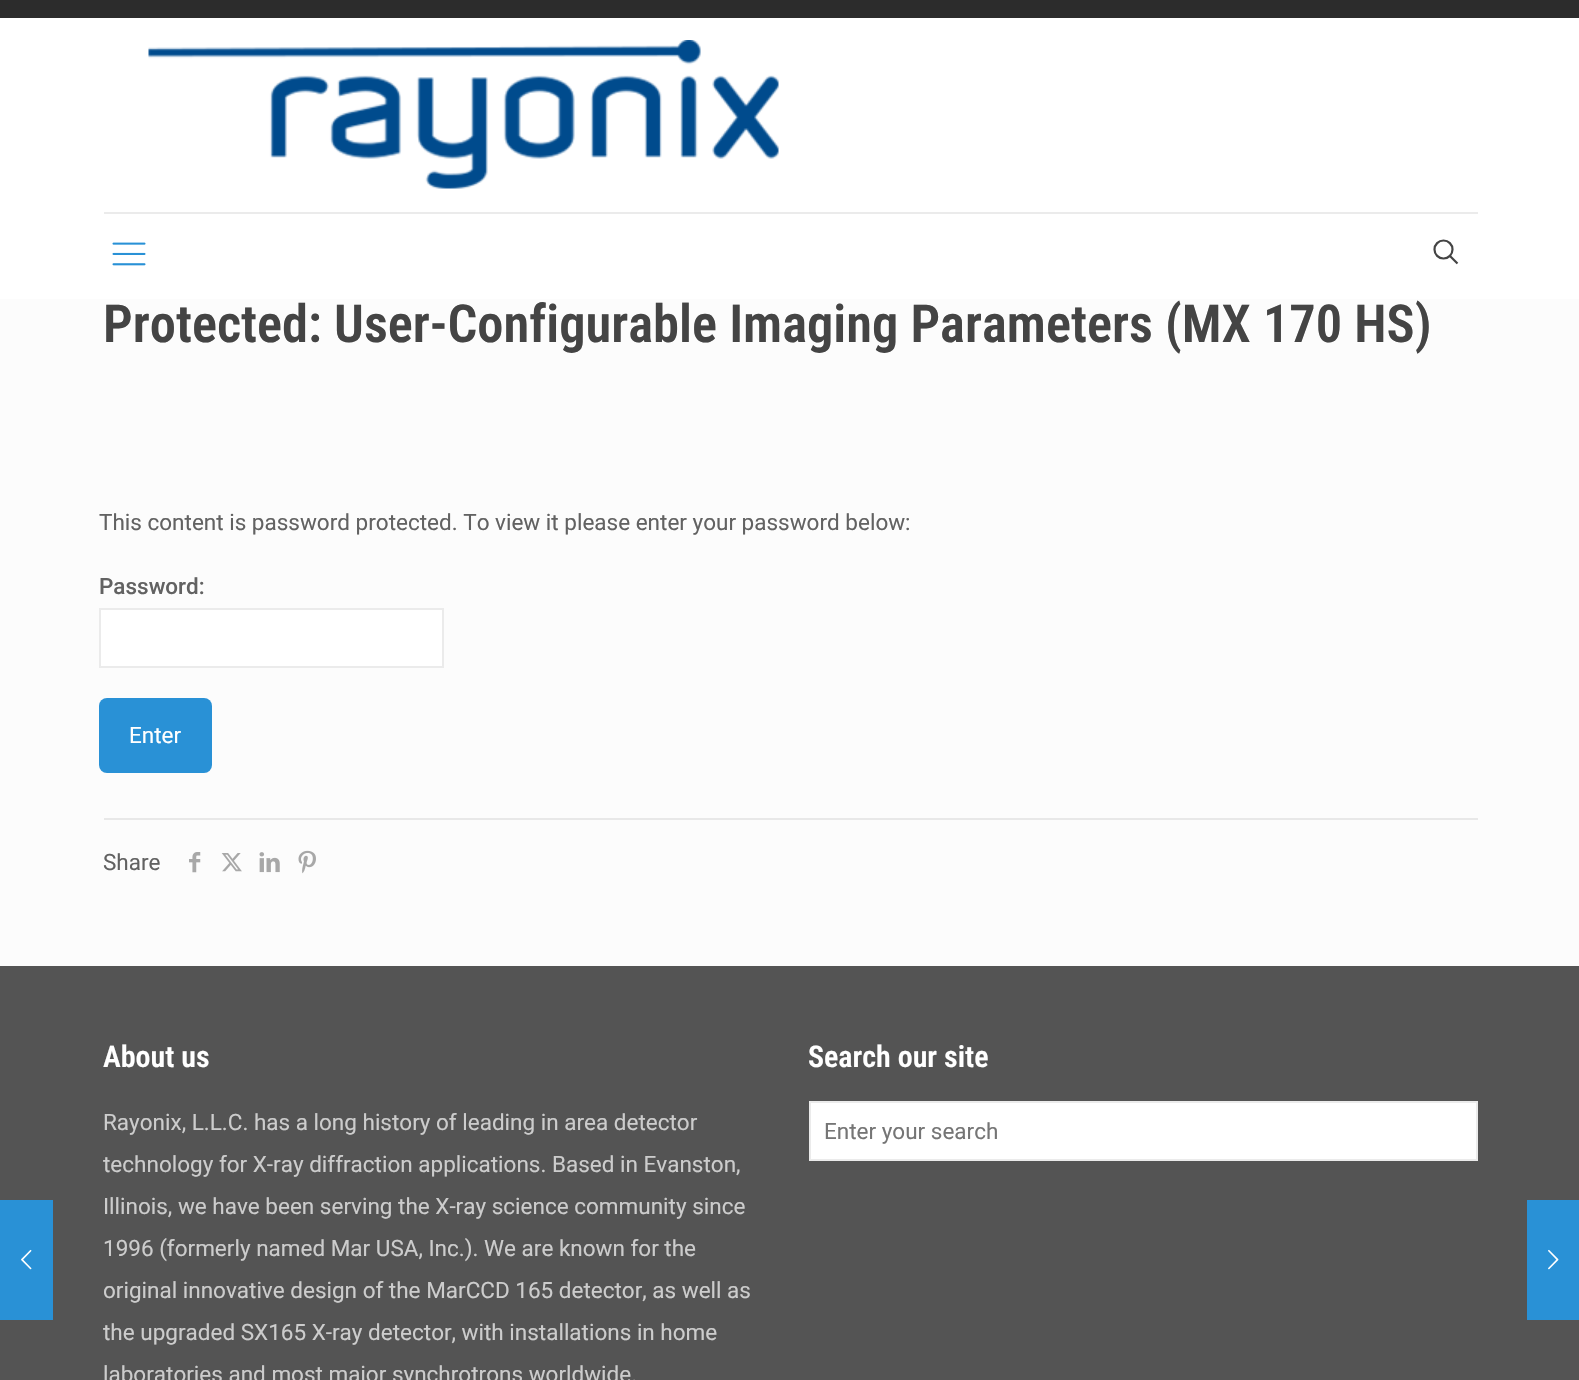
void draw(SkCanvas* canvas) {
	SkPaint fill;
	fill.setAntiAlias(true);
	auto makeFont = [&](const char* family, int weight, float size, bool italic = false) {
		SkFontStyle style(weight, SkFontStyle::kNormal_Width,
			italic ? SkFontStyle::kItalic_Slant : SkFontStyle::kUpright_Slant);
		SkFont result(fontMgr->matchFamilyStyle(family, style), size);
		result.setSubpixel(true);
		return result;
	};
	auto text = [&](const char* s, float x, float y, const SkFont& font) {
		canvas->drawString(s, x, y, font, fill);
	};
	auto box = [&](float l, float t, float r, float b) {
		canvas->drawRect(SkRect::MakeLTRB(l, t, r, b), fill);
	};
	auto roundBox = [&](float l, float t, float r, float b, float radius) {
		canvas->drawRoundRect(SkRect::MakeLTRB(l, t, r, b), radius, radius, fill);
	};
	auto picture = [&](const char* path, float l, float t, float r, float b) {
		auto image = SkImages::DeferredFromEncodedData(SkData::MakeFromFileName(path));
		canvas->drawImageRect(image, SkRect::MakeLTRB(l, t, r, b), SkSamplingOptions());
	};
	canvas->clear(0xFFFCFCFC);
	fill.setColor(0xFF545454);
	box(0, 966, 1579, 1380);
	fill.setColor(0xFF2991D6);
	box(0, 1200, 53, 1320);
	picture("image0.png", 21, 1249, 32, 1270);
	fill.setColor(0xFF2C2C2C);
	box(0, 0, 1579, 18);
	fill.setColor(0xFFFFFFFF);
	box(0, 18, 1579, 299);
	fill.setColor(0xFFEBEBEB);
	box(104, 212, 1478, 214);
	picture("image1.png", 148, 40, 779, 189);
	picture("image2.png", 112, 242, 146, 266);
	fill.setStyle(SkPaint::kStroke_Style);
	fill.setStrokeWidth(2.2f);
	fill.setColor(0xFF444444);
	canvas->drawCircle(1443.5f, 249.5f, 9, fill);
	canvas->drawPath(SkPathBuilder().moveTo(1450, 256).lineTo(1457.5f, 263.5f).detach(), fill);
	fill.setStyle(SkPaint::kFill_Style);
	fill.setColor(0xFFFFFFFF);
	canvas->drawRect(SkRect::MakeLTRB(100, 609, 443, 667), fill);
	fill.setStyle(SkPaint::kStroke_Style);
	fill.setStrokeWidth(2);
	fill.setColor(0xFFEBEBEB);
	canvas->drawRect(SkRect::MakeLTRB(100, 609, 443, 667), fill);
	fill.setStyle(SkPaint::kFill_Style);
	fill.setColor(0xFF2991D6);
	roundBox(99, 698, 212, 773, 8);
	fill.setColor(0xFFE8E8E8);
	box(104, 818, 1478, 820);
	picture("image3.png", 189, 852, 201, 873);
	picture("image4.png", 221, 853, 242, 872);
	picture("image5.png", 259, 852, 280, 873);
	picture("image6.png", 298, 850, 316, 874);
	fill.setColor(0xFFFFFFFF);
	canvas->drawRect(SkRect::MakeLTRB(810, 1102, 1477, 1160), fill);
	fill.setStyle(SkPaint::kStroke_Style);
	fill.setColor(0xFFEBEBEB);
	canvas->drawRect(SkRect::MakeLTRB(810, 1102, 1477, 1160), fill);
	fill.setStyle(SkPaint::kFill_Style);
	fill.setColor(0xFF2991D6);
	box(1527, 1200, 1579, 1320);
	picture("image7.png", 1548, 1249, 1559, 1270);
	auto font1 = makeFont("Roboto Condensed", 600, 52.5f);
	fill.setColor(0xFF444444);
	text("Protected: User-Configurable Imaging Parameters (MX 170 HS)", 103, 342, font1);
	auto font2 = makeFont("Roboto", 400, 22.5f);
	fill.setColor(0xFF626262);
	text("This content is password protected. To view it please enter your password below:", 99, 530, font2);
	auto font3 = makeFont("Roboto", 500, 22.5f);
	text("Password:", 99, 594, font3);
	fill.setColor(0xFFFFFFFF);
	text("Enter", 129, 743, font2);
	fill.setColor(0xFF626262);
	text("Share", 103, 870, font2);
	auto font4 = makeFont("Roboto Condensed", 600, 30);
	fill.setColor(0xFFFFFFFF);
	text("About us", 103, 1067, font4);
	fill.setColor(0xFFCCCCCC);
	text("Rayonix, L.L.C. has a long history of leading in area detector", 103, 1130, font2);
	text("technology for X-ray diffraction applications. Based in Evanston,", 103, 1172, font2);
	text("Illinois, we have been serving the X-ray science community since", 103, 1214, font2);
	text("1996 (formerly named Mar USA, Inc.). We are known for the", 103, 1256, font2);
	text("original innovative design of the MarCCD 165 detector, as well as", 103, 1298, font2);
	text("the upgraded SX165 X-ray detector, with installations in home", 103, 1340, font2);
	text("laboratories and most major synchrotrons worldwide.", 103, 1382, font2);
	fill.setColor(0xFFFFFFFF);
	text("Search our site", 808, 1067, font4);
	fill.setColor(0xFF757575);
	text("Enter your search", 824, 1139, font2);
}
